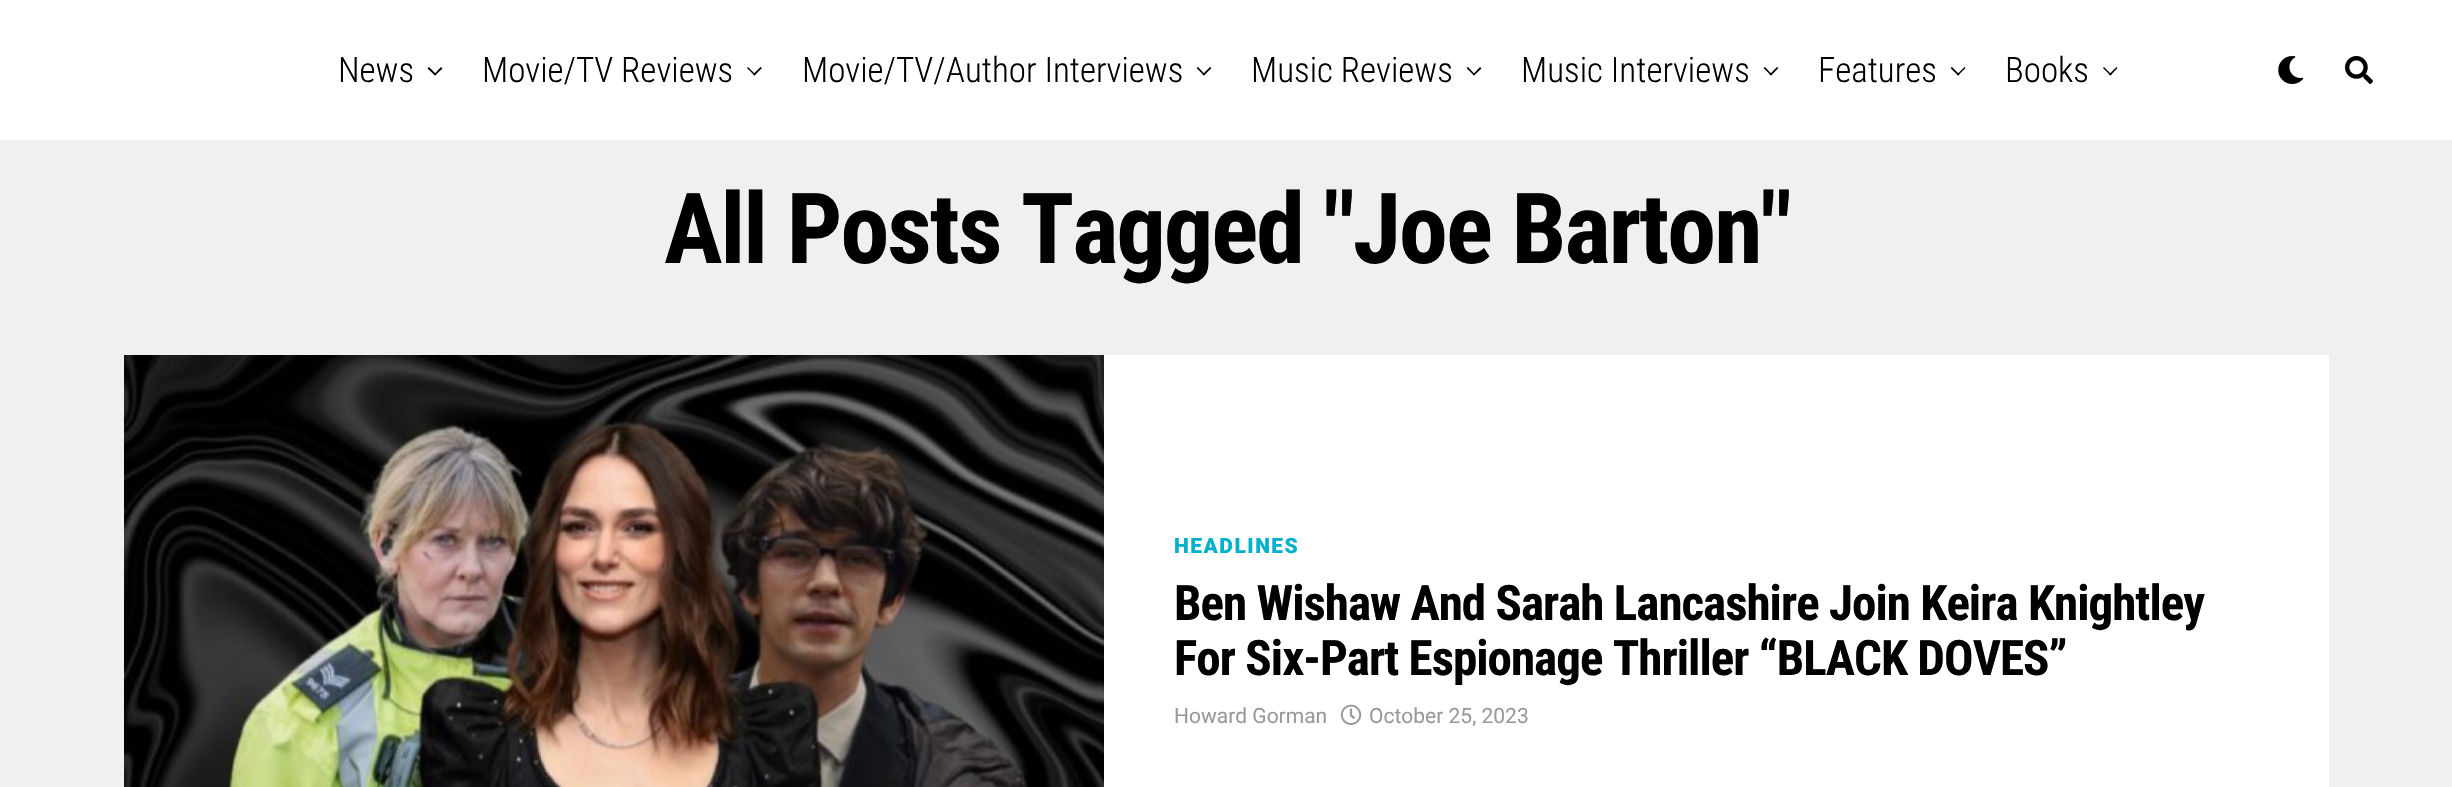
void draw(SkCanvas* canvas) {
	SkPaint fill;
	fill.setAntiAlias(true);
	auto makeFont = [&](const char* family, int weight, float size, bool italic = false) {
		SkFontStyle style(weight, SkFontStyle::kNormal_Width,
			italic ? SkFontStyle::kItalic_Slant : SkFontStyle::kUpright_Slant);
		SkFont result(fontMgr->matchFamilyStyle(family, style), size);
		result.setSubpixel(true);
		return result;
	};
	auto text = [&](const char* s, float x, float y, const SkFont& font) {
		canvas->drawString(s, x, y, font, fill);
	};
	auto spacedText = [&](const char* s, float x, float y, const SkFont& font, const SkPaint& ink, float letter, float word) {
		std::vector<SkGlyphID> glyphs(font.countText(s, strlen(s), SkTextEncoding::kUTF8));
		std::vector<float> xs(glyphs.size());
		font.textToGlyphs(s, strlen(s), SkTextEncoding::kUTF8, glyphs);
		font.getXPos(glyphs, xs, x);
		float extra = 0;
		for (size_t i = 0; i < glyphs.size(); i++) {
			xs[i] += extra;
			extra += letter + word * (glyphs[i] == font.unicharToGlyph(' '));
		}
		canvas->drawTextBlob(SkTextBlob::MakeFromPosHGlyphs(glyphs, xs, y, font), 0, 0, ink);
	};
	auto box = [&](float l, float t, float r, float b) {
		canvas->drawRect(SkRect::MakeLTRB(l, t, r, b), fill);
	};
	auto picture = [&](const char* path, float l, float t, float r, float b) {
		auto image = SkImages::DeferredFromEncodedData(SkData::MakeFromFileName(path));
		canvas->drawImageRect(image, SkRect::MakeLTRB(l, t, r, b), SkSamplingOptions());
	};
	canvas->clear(0xFFF0F0F0);
	fill.setColor(0xFFFFFFFF);
	box(0, 0, 2452, 140);
	fill.setColor(0xFF000000);
	canvas->drawPath(SkPathBuilder().moveTo(441, 67).lineTo(442.5f, 68.5f).lineTo(435, 75.5f).lineTo(434, 74.5f).close().detach(), fill);
	canvas->drawPath(SkPathBuilder().moveTo(429, 67).lineTo(436.5f, 74.5f).lineTo(435, 75.5f).lineTo(427.5f, 68.5f).close().detach(), fill);
	canvas->drawPath(SkPathBuilder().moveTo(760.5f, 67).lineTo(762, 68).lineTo(754.5f, 75.5f).lineTo(753, 74.5f).close().detach(), fill);
	canvas->drawPath(SkPathBuilder().moveTo(748, 67).lineTo(755.5f, 74.5f).lineTo(754.5f, 75.5f).lineTo(747, 68).close().detach(), fill);
	canvas->drawPath(SkPathBuilder().moveTo(1210, 67).lineTo(1211.5f, 68).lineTo(1204, 75.5f).lineTo(1202.5f, 74.5f).close().detach(), fill);
	canvas->drawPath(SkPathBuilder().moveTo(1198, 67).lineTo(1205, 74.5f).lineTo(1204, 75.5f).lineTo(1196.5f, 68).close().detach(), fill);
	canvas->drawPath(SkPathBuilder().moveTo(1480, 67).lineTo(1481.5f, 68.5f).lineTo(1474, 75.5f).lineTo(1473, 74.5f).close().detach(), fill);
	canvas->drawPath(SkPathBuilder().moveTo(1468, 67).lineTo(1475, 74.5f).lineTo(1474, 75.5f).lineTo(1466.5f, 68).close().detach(), fill);
	canvas->drawPath(SkPathBuilder().moveTo(1777, 67).lineTo(1778.5f, 68).lineTo(1771, 75.5f).lineTo(1769.5f, 74.5f).close().detach(), fill);
	canvas->drawPath(SkPathBuilder().moveTo(1765, 67).lineTo(1772, 74.5f).lineTo(1771, 75.5f).lineTo(1763.5f, 68).close().detach(), fill);
	canvas->drawPath(SkPathBuilder().moveTo(1964.5f, 67).lineTo(1965.5f, 68).lineTo(1958, 75.5f).lineTo(1957, 74.5f).close().detach(), fill);
	canvas->drawPath(SkPathBuilder().moveTo(1952, 67).lineTo(1959.5f, 74.5f).lineTo(1958, 75.5f).lineTo(1950.5f, 68).close().detach(), fill);
	canvas->drawPath(SkPathBuilder().moveTo(2116.5f, 67).lineTo(2117.5f, 68).lineTo(2110.5f, 75.5f).lineTo(2109, 74.5f).close().detach(), fill);
	canvas->drawPath(SkPathBuilder().moveTo(2104, 67).lineTo(2111.5f, 74.5f).lineTo(2110.5f, 75.5f).lineTo(2103, 68).close().detach(), fill);
	picture("image0.png", 2278, 56, 2304, 84);
	picture("image1.png", 2345, 56, 2373, 84);
	fill.setColor(0xFFFFFFFF);
	box(1104, 355, 2329, 787);
	picture("image2.png", 124, 355, 1104, 787);
	picture("image3.png", 1340, 704, 1362, 725);
	auto font1 = makeFont("Roboto Condensed", 300, 35);
	fill.setColor(0xFF000000);
	text("News", 338, 82, font1);
	text("Movie/TV Reviews", 482, 82, font1);
	text("Movie/TV/Author Interviews", 802, 82, font1);
	text("Music Reviews", 1251, 82, font1);
	text("Music Interviews", 1521, 82, font1);
	text("Features", 1818, 82, font1);
	text("Books", 2005, 82, font1);
	auto font2 = makeFont("Roboto Condensed", 700, 98);
	spacedText("All Posts Tagged \"Joe Barton\"", 664, 263, font2, fill, -1.95f, 0);
	auto font3 = makeFont("Roboto", 900, 21);
	fill.setColor(0xFF00B0CC);
	spacedText("HEADLINES", 1174, 553, font3, fill, 1.5f, 0);
	auto font4 = makeFont("Roboto Condensed", 700, 49);
	fill.setColor(0xFF000000);
	spacedText("Ben Wishaw And Sarah Lancashire Join Keira Knightley", 1174, 620, font4, fill, -0.98f, 0);
	spacedText("For Six-Part Espionage Thriller “BLACK DOVES”", 1174, 675, font4, fill, -0.98f, 0);
	auto font5 = makeFont("Roboto", 400, 21);
	fill.setColor(0xFF999999);
	text("Howard Gorman", 1174, 723, font5);
	text("October 25, 2023", 1369, 723, font5);
}
